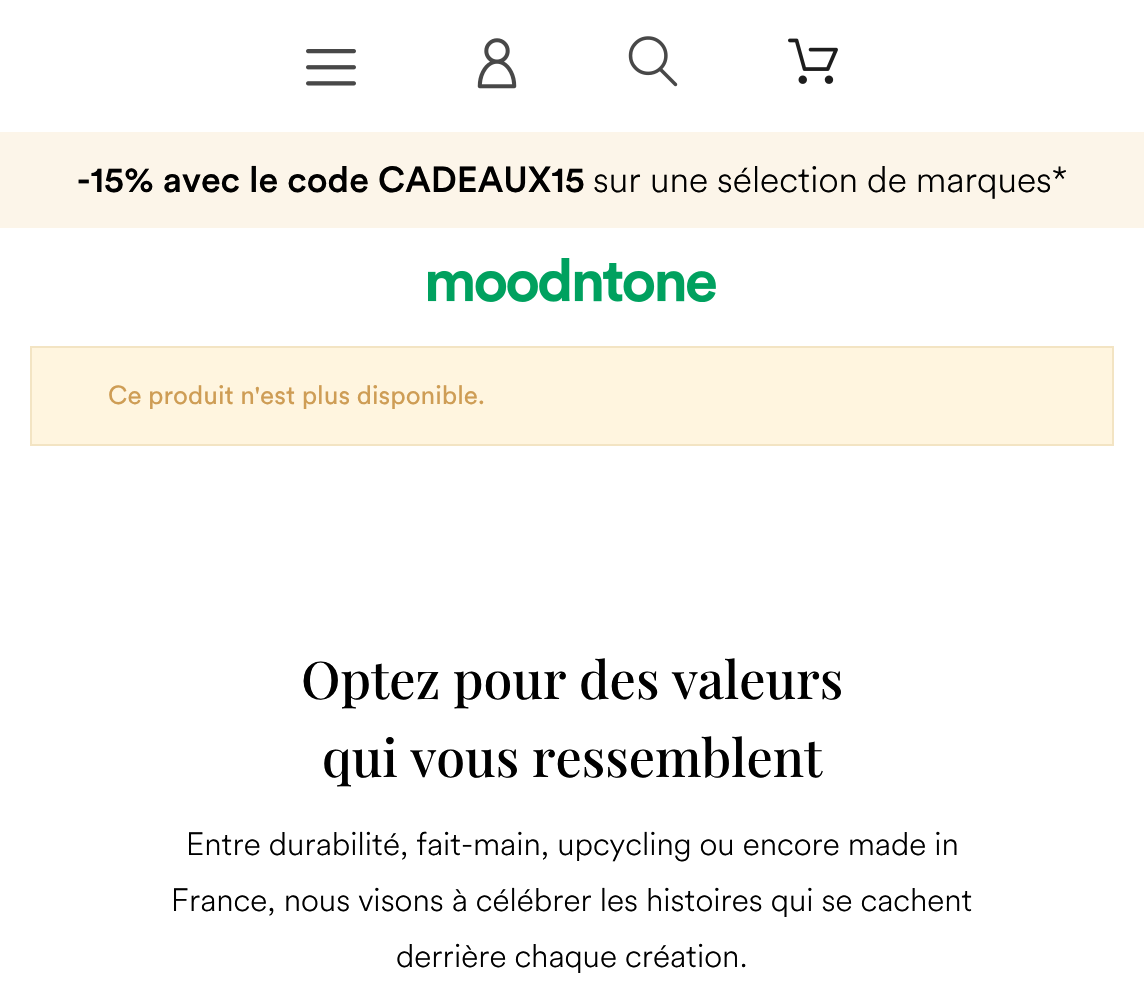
void draw(SkCanvas* canvas) {
	SkPaint fill;
	fill.setAntiAlias(true);
	auto makeFont = [&](const char* family, int weight, float size, bool italic = false) {
		SkFontStyle style(weight, SkFontStyle::kNormal_Width,
			italic ? SkFontStyle::kItalic_Slant : SkFontStyle::kUpright_Slant);
		SkFont result(fontMgr->matchFamilyStyle(family, style), size);
		result.setSubpixel(true);
		return result;
	};
	auto text = [&](const char* s, float x, float y, const SkFont& font) {
		canvas->drawString(s, x, y, font, fill);
	};
	auto box = [&](float l, float t, float r, float b) {
		canvas->drawRect(SkRect::MakeLTRB(l, t, r, b), fill);
	};
	auto picture = [&](const char* path, float l, float t, float r, float b) {
		auto image = SkImages::DeferredFromEncodedData(SkData::MakeFromFileName(path));
		canvas->drawImageRect(image, SkRect::MakeLTRB(l, t, r, b), SkSamplingOptions());
	};
	canvas->clear(0xFFFFFFFF);
	picture("image0.png", 306, 49, 356, 86);
	picture("image1.png", 477, 38, 517, 89);
	picture("image2.png", 628, 36, 678, 87);
	picture("image3.png", 788, 38, 838, 84);
	picture("image4.png", 428, 258, 716, 302);
	fill.setColor(0xFFFCF5E9);
	box(0, 132, 1144, 228);
	fill.setColor(0xFFFFF5DF);
	canvas->drawRect(SkRect::MakeLTRB(31, 347, 1113, 445), fill);
	fill.setStyle(SkPaint::kStroke_Style);
	fill.setStrokeWidth(2);
	fill.setColor(0xFFF3E4C3);
	canvas->drawRect(SkRect::MakeLTRB(31, 347, 1113, 445), fill);
	auto font1 = makeFont("Circular", 500, 36);
	fill.setStyle(SkPaint::kFill_Style);
	fill.setColor(0xFF000000);
	text("-15% avec le code CADEAUX15", 77, 192, font1);
	auto font2 = makeFont("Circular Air", 300, 36);
	text("sur une sélection de marques*", 593, 192, font2);
	auto font3 = makeFont("Circular", 400, 26);
	fill.setColor(0xFFCE9D55);
	text("Ce produit n'est plus disponible.", 108, 404, font3);
	auto font4 = makeFont("Playfair Display", 500, 52);
	fill.setColor(0xFF000000);
	text("Optez pour des valeurs", 301, 699, font4);
	text("qui vous ressemblent", 322, 777, font4);
	auto font5 = makeFont("Circular Air", 300, 32);
	text("Entre durabilité, fait-main, upcycling ou encore made in", 186, 855, font5);
	text("France, nous visons à célébrer les histoires qui se cachent", 171, 911, font5);
	text("derrière chaque création.", 396, 967, font5);
}
